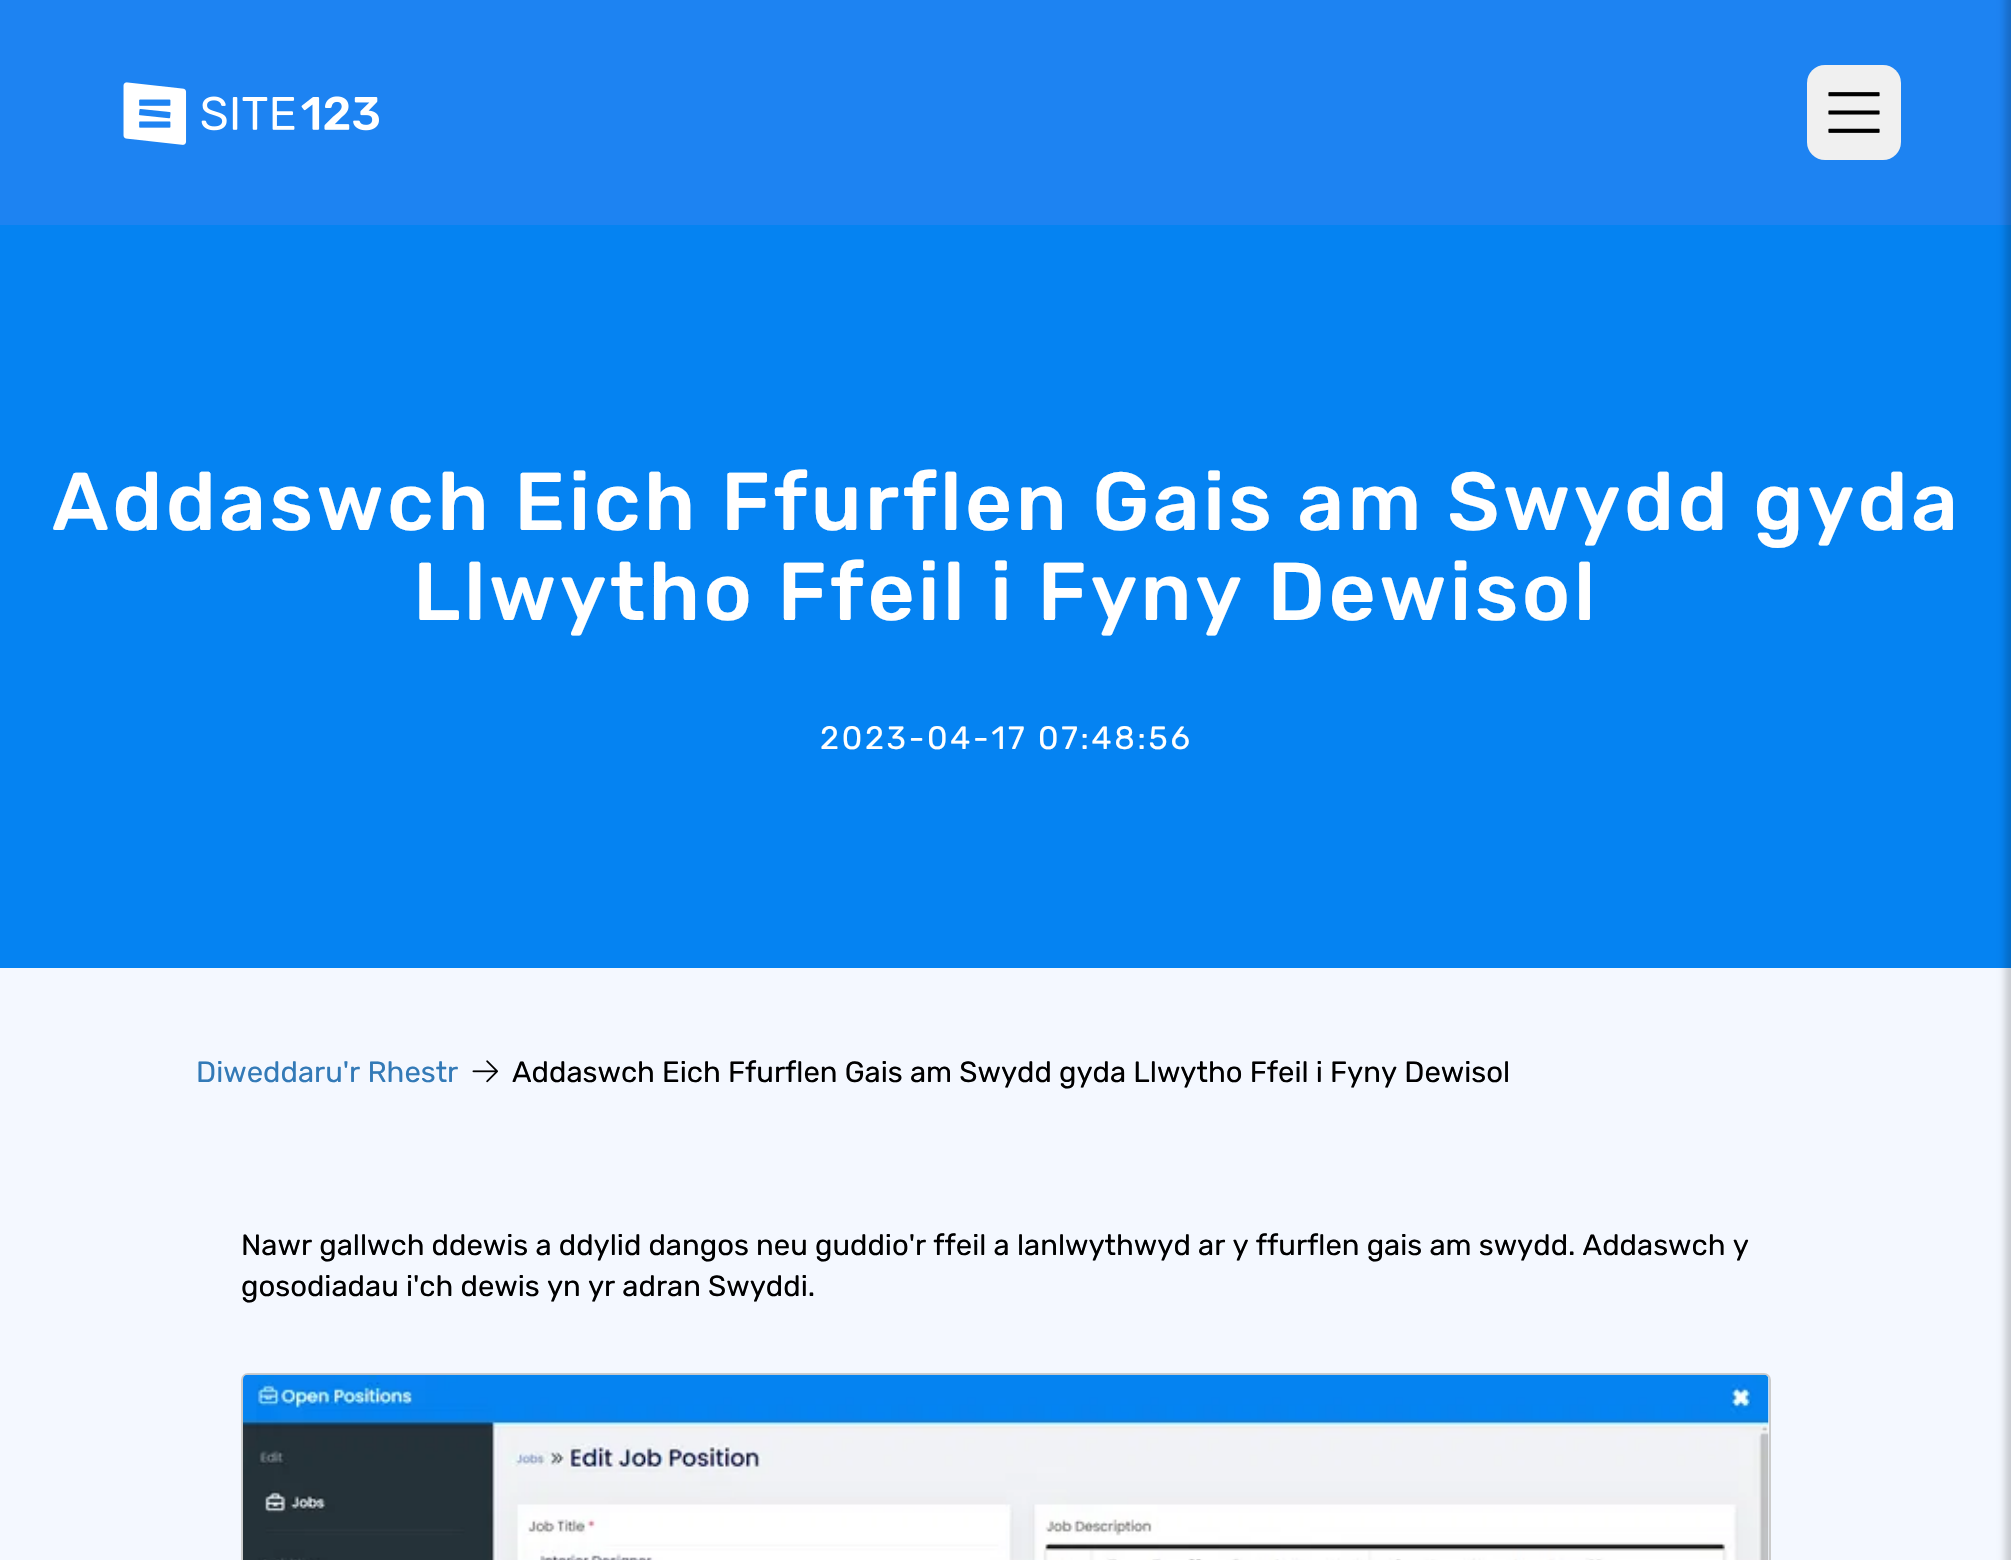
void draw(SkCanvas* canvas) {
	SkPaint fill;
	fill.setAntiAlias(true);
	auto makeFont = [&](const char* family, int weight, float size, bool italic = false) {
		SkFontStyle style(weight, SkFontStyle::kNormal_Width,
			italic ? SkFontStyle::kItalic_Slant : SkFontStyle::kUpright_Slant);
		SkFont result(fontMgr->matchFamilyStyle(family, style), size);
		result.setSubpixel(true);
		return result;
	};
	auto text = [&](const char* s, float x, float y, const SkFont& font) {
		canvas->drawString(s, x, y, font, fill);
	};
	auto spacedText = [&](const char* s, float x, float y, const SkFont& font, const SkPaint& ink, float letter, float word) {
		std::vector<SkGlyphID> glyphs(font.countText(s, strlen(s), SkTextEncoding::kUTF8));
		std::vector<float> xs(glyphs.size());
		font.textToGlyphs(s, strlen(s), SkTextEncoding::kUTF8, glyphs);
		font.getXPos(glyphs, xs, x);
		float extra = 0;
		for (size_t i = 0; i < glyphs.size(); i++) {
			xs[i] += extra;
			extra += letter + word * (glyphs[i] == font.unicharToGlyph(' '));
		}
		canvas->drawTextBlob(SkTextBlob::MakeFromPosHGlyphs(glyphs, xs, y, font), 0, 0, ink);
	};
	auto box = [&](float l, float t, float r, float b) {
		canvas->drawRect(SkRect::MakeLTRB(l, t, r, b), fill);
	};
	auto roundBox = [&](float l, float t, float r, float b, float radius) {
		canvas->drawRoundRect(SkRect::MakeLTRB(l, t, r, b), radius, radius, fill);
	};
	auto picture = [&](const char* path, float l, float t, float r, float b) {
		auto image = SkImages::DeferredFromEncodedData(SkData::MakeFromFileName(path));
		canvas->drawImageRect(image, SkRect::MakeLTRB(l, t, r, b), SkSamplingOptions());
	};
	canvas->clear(0xFFF4F8FF);
	fill.setColor(0xFF1D83F2);
	box(0, 0, 2011, 225);
	picture("image0.png", 123, 82, 379, 145);
	fill.setColor(0xFFF0F0F0);
	roundBox(1807, 65, 1901, 160, 18);
	picture("image1.png", 1828, 92, 1880, 133);
	fill.setColor(0xFF0583F2);
	box(0, 225, 2011, 968);
	fill.setColor(0x2E000000);
	fill.setMaskFilter(SkMaskFilter::MakeBlur(kNormal_SkBlurStyle, 3.5f));
	canvas->drawRect(SkRect::MakeLTRB(2005, -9, 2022, 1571), fill);
	fill.setMaskFilter(nullptr);
	picture("image2.png", 472, 1060, 498, 1083);
	fill.setStyle(SkPaint::kStroke_Style);
	fill.setStrokeWidth(2);
	fill.setColor(0xFFCCCCCC);
	canvas->drawRoundRect(SkRect::MakeLTRB(242, 1374, 1770, 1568), 6, 6, fill);
	picture("image3.png", 243, 1374, 1769, 1560);
	auto font1 = makeFont("Rubik", 500, 81.9f);
	fill.setStyle(SkPaint::kFill_Style);
	fill.setColor(0xFFFFFFFF);
	spacedText("Addaswch Eich Ffurflen Gais am Swydd gyda", 52, 530, font1, fill, 3.4f, 0);
	spacedText("Llwytho Ffeil i Fyny Dewisol", 413, 620, font1, fill, 3.4f, 0);
	auto font2 = makeFont("Rubik", 400, 32.25f);
	spacedText("2023-04-17 07:48:56", 820, 749, font2, fill, 2.75f, 0);
	auto font3 = makeFont("Rubik", 400, 29.25f);
	fill.setColor(0xFF337AB7);
	text("Diweddaru'r Rhestr", 196, 1082, font3);
	fill.setColor(0xFF000000);
	text("Addaswch Eich Ffurflen Gais am Swydd gyda Llwytho Ffeil i Fyny Dewisol", 512, 1082, font3);
	text("Nawr gallwch ddewis a ddylid dangos neu guddio'r ffeil a lanlwythwyd ar y ffurflen gais am swydd. Addaswch y", 241, 1255, font3);
	text("gosodiadau i'ch dewis yn yr adran Swyddi.", 241, 1296, font3);
}
